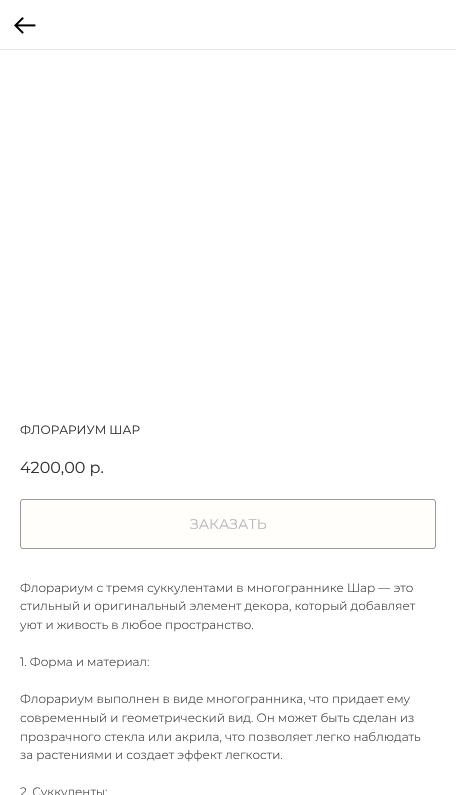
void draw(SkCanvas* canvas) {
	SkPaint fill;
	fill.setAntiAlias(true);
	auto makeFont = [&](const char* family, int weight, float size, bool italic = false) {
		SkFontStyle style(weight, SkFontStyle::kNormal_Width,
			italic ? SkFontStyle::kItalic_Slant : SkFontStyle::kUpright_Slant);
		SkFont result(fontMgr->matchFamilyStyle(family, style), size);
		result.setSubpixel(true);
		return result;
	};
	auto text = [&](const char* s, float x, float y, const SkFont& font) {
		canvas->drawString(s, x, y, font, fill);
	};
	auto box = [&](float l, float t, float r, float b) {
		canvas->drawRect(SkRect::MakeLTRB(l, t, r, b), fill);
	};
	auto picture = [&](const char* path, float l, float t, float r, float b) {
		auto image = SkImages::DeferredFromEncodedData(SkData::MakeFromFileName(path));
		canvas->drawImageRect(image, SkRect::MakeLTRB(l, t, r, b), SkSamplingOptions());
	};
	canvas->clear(0xFFFFFFFF);
	fill.setColor(0xFFE6E6E6);
	box(0, 49, 456, 50);
	picture("image0.png", 14, 17, 36, 34);
	fill.setColor(0xFFFFFEFB);
	canvas->drawRoundRect(SkRect::MakeLTRB(20.5f, 499.5f, 435.5f, 548.5f), 2.5f, 2.5f, fill);
	fill.setStyle(SkPaint::kStroke_Style);
	fill.setStrokeWidth(1);
	fill.setColor(0xFF999999);
	canvas->drawRoundRect(SkRect::MakeLTRB(20.5f, 499.5f, 435.5f, 548.5f), 2.5f, 2.5f, fill);
	auto font1 = makeFont("Montserrat", 400, 12);
	fill.setStyle(SkPaint::kFill_Style);
	fill.setColor(0xFF333333);
	text("ФЛОРАРИУМ ШАР", 20, 434, font1);
	auto font2 = makeFont("Montserrat", 400, 16);
	text("4200,00 р.", 20, 473, font2);
	auto font3 = makeFont("Montserrat", 400, 14);
	fill.setColor(0xFFB8B8B8);
	text("ЗАКАЗАТЬ", 190, 529, font3);
	auto font4 = makeFont("Montserrat", 300, 12);
	fill.setColor(0xFF333333);
	text("Флорариум с тремя суккулентами в многограннике Шар — это", 20, 592, font4);
	text("стильный и оригинальный элемент декора, который добавляет", 20, 610, font4);
	text("уют и живость в любое пространство.", 20, 629, font4);
	text("1. Форма и материал:", 20, 666, font4);
	text("Флорариум выполнен в виде многогранника, что придает ему", 20, 703, font4);
	text("современный и геометрический вид. Он может быть сделан из", 20, 722, font4);
	text("прозрачного стекла или акрила, что позволяет легко наблюдать", 20, 741, font4);
	text("за растениями и создает эффект легкости.", 20, 759, font4);
	text("2. Суккуленты:", 20, 796, font4);
}
